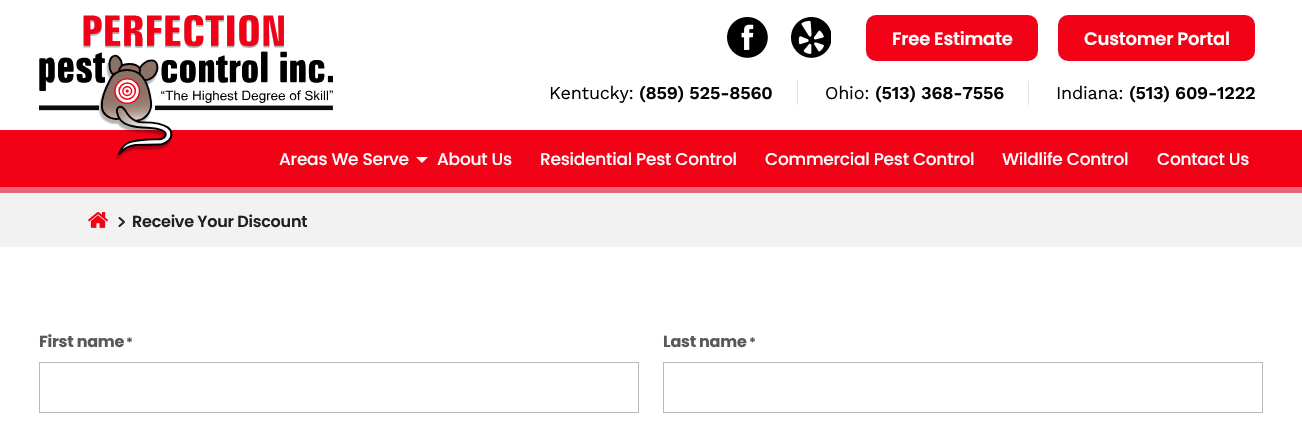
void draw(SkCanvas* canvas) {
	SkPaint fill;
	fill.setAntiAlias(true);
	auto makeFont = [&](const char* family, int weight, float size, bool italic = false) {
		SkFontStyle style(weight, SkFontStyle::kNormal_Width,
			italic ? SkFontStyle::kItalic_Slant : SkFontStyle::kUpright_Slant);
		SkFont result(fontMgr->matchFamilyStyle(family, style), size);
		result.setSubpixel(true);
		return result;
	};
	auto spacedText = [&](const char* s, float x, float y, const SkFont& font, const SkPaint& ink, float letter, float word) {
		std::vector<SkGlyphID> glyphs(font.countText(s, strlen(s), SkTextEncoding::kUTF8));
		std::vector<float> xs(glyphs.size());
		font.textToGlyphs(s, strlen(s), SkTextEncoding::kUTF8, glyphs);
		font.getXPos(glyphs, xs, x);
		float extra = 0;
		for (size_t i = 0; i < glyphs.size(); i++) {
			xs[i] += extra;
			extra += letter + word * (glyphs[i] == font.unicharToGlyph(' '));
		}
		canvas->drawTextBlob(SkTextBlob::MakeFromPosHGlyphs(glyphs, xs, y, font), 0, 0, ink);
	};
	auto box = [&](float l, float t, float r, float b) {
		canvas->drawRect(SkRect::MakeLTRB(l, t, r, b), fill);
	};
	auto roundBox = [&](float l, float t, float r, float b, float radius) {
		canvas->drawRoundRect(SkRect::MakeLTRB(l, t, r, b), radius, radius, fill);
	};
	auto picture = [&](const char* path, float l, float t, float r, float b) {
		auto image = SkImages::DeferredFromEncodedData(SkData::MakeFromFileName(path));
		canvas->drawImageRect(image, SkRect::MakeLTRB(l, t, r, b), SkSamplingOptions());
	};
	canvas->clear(0xFFFFFFFF);
	fill.setColor(0xFFF20117);
	box(0, 130, 1302, 187);
	picture("image0.png", 39, 15, 333, 160);
	picture("image1.png", 727, 17, 768, 58);
	picture("image2.png", 791, 17, 831, 58);
	roundBox(866, 15, 1038, 61, 10);
	roundBox(1058, 15, 1255, 61, 10);
	fill.setColor(0xFFE2E2E2);
	box(797, 81, 798, 105);
	box(1028, 81, 1029, 105);
	fill.setColor(0xFFFFFFFF);
	canvas->drawPath(SkPathBuilder().moveTo(422, 163).lineTo(416, 157).lineTo(428, 157).close().detach(), fill);
	fill.setColor(0xFFF2F2F2);
	box(0, 193, 1302, 247);
	fill.setColor(0xFFE6667A);
	box(0, 187, 1302, 193);
	picture("image3.png", 88, 212, 108, 228);
	fill.setStyle(SkPaint::kStroke_Style);
	fill.setStrokeWidth(2);
	fill.setStrokeCap(SkPaint::kRound_Cap);
	fill.setStrokeJoin(SkPaint::kRound_Join);
	fill.setColor(0xFF211F20);
	canvas->drawPath(SkPathBuilder().moveTo(119.5f, 218).lineTo(124, 222).lineTo(119.5f, 226).detach(), fill);
	fill.setStrokeWidth(1);
	fill.setStrokeCap(SkPaint::kButt_Cap);
	fill.setStrokeJoin(SkPaint::kMiter_Join);
	fill.setColor(0xFFB8B8B8);
	canvas->drawRect(SkRect::MakeLTRB(39.5f, 362.5f, 638.5f, 412.5f), fill);
	canvas->drawRect(SkRect::MakeLTRB(663.5f, 362.5f, 1262.5f, 412.5f), fill);
	auto font1 = makeFont("Poppins", 600, 18);
	fill.setStyle(SkPaint::kFill_Style);
	fill.setColor(0xFFFFFFFF);
	spacedText("Free Estimate", 892, 45, font1, fill, -0.25f, 0);
	spacedText("Customer Portal", 1084, 45, font1, fill, -0.25f, 0);
	auto font2 = makeFont("Work Sans", 400, 18);
	fill.setColor(0xFF030303);
	spacedText("Kentucky:", 549, 99, font2, fill, -0.25f, 0);
	auto font3 = makeFont("Work Sans", 600, 18);
	spacedText("(859) 525-8560", 639, 99, font3, fill, -0.25f, 0);
	spacedText("Ohio:", 825, 99, font2, fill, -0.25f, 0);
	spacedText("(513) 368-7556", 875, 99, font3, fill, -0.25f, 0);
	spacedText("Indiana:", 1056, 99, font2, fill, -0.25f, 0);
	spacedText("(513) 609-1222", 1129, 99, font3, fill, -0.25f, 0);
	auto font4 = makeFont("Poppins", 500, 17);
	fill.setColor(0xFFFFFFFF);
	spacedText("Areas We Serve", 279, 165, font4, fill, -0.25f, 0);
	spacedText("About Us", 437, 165, font4, fill, -0.25f, 0);
	spacedText("Residential Pest Control", 540, 165, font4, fill, -0.25f, 0);
	spacedText("Commercial Pest Control", 765, 165, font4, fill, -0.25f, 0);
	spacedText("Wildlife Control", 1002, 165, font4, fill, -0.25f, 0);
	spacedText("Contact Us", 1157, 165, font4, fill, -0.25f, 0);
	auto font5 = makeFont("Poppins", 600, 16);
	fill.setColor(0xFF211F20);
	spacedText("Receive Your Discount", 132, 227, font5, fill, -0.25f, 0);
	auto font6 = makeFont("Poppins", 700, 16);
	fill.setColor(0xFF58595B);
	spacedText("First name", 39, 347, font6, fill, -0.25f, 0);
	auto font7 = makeFont("Poppins", 700, 13);
	spacedText("*", 126, 347, font7, fill, -0.25f, 0);
	spacedText("Last name", 663, 347, font6, fill, -0.25f, 0);
	spacedText("*", 749, 347, font7, fill, -0.25f, 0);
}
